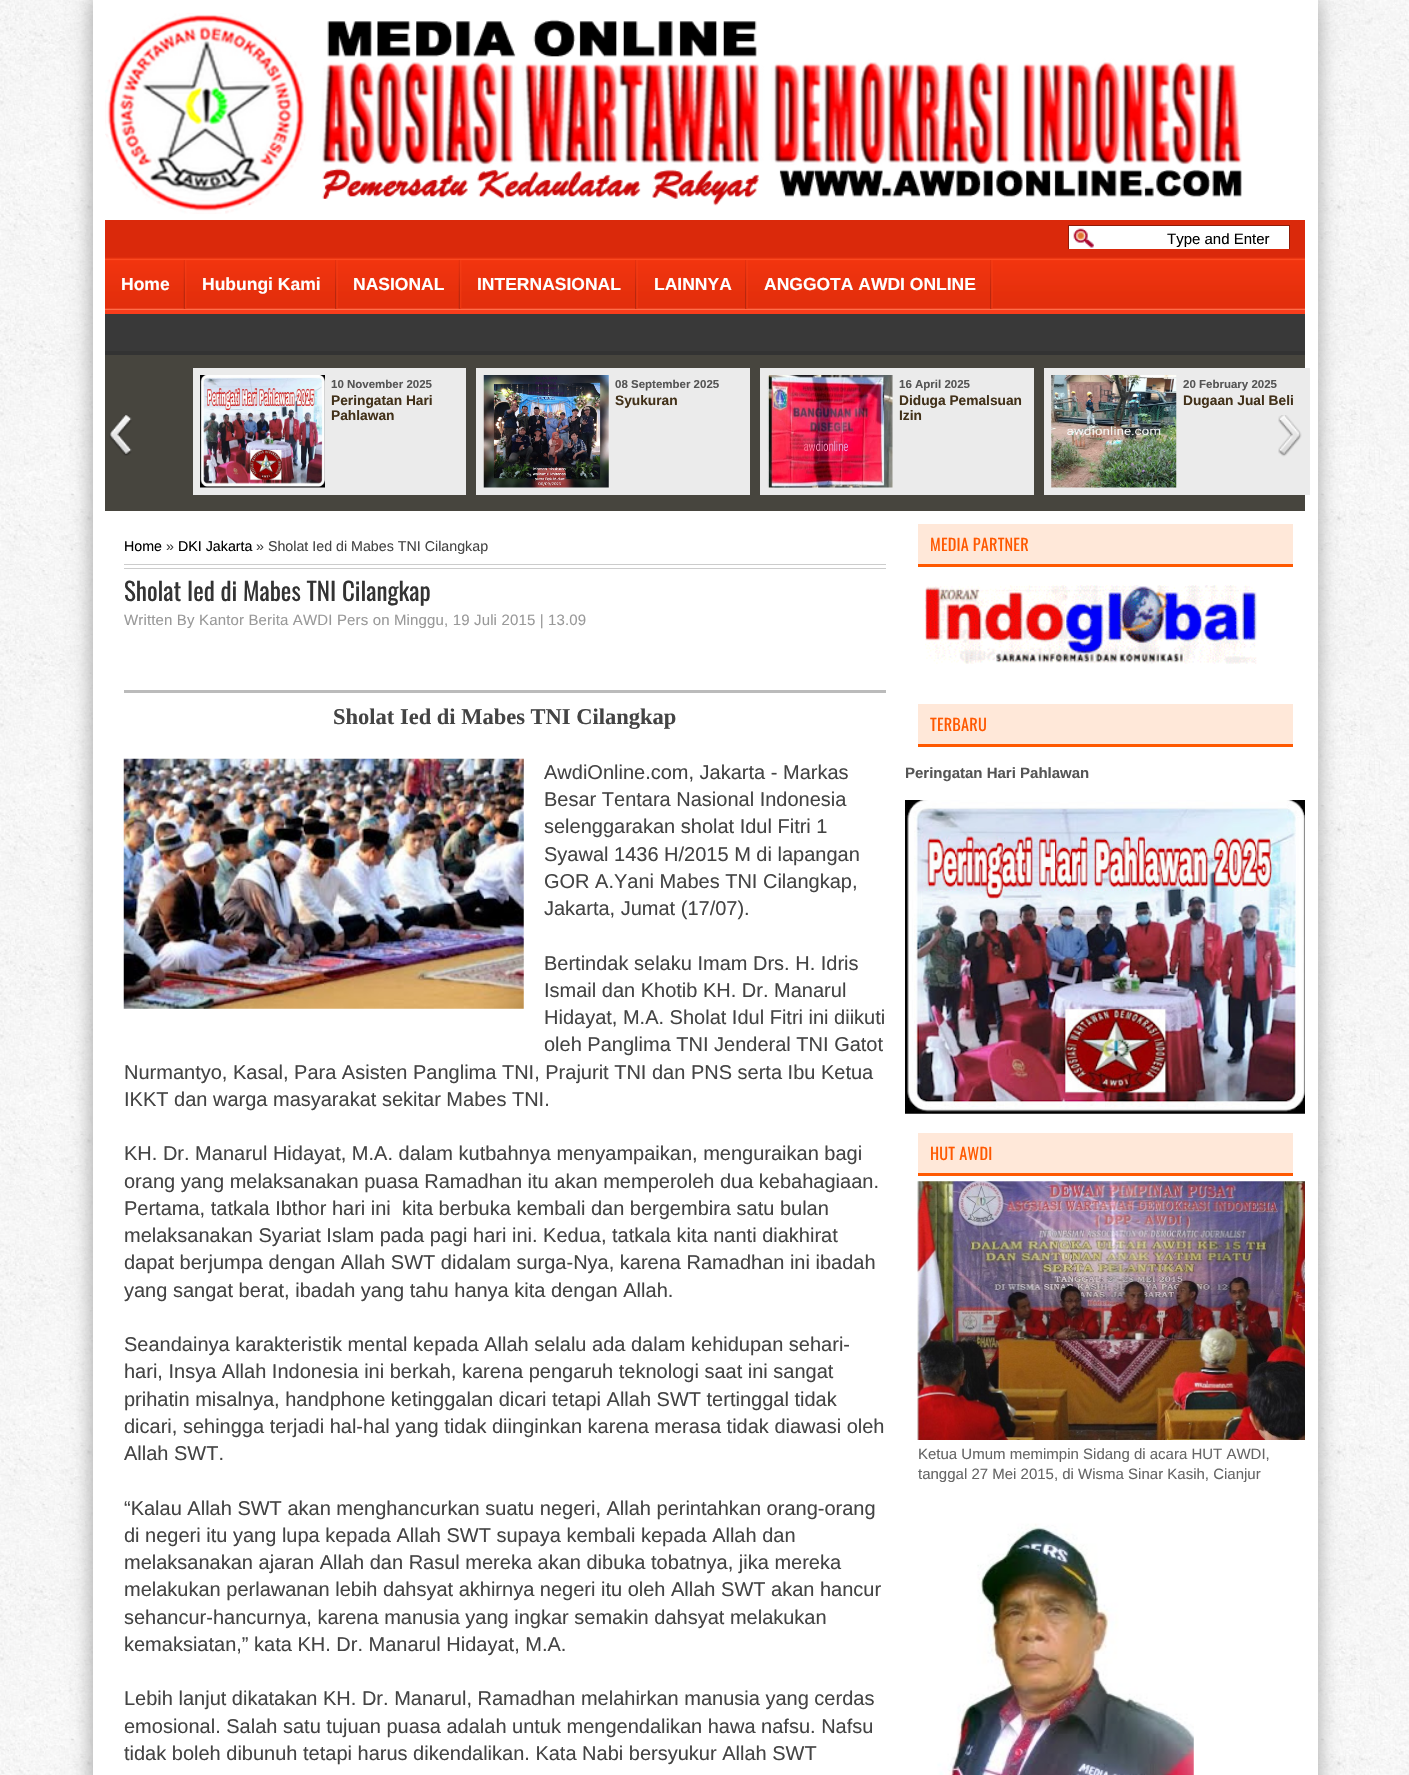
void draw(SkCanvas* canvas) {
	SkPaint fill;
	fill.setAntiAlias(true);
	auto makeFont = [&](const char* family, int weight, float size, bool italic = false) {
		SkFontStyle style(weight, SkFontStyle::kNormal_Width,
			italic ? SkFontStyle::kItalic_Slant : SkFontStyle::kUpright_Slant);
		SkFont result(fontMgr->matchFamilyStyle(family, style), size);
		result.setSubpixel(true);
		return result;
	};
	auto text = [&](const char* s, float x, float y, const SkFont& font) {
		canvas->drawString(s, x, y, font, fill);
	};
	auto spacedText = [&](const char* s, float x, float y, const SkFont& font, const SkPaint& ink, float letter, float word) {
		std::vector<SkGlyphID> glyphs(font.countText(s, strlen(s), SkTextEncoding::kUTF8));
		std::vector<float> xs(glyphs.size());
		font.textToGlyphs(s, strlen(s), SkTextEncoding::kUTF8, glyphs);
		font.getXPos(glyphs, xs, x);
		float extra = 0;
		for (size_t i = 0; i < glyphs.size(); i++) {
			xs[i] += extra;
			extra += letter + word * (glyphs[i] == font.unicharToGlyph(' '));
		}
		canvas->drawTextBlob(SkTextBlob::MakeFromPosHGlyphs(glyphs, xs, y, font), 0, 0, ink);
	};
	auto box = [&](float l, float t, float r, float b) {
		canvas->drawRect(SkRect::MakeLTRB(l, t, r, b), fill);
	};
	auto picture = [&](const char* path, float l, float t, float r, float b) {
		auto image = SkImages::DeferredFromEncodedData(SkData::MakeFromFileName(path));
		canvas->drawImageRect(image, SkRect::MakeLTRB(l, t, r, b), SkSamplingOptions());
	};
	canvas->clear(0xFFFFFFFF);
	picture("image0.png", 0, 0, 1409, 1775);
	fill.setColor(0xFFAAAAAA);
	fill.setMaskFilter(SkMaskFilter::MakeBlur(kNormal_SkBlurStyle, 9.5f));
	canvas->drawRect(SkRect::MakeLTRB(91, -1, 1319, 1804), fill);
	fill.setMaskFilter(nullptr);
	fill.setColor(0xFFFFFFFF);
	box(93, 0, 1318, 1775);
	picture("image1.png", 105, 13, 1242, 214);
	fill.setColor(0xFFDA290B);
	box(105, 220, 1305, 258);
	fill.setColor(0xFFFFFFFF);
	box(1069, 226, 1289, 249);
	picture("image2.png", 1073, 228, 1094, 248);
	canvas->save();
	canvas->clipRect(SkRect::MakeLTRB(105, 220, 1305, 249));
	fill.setStyle(SkPaint::kStroke_Style);
	fill.setStrokeWidth(1);
	fill.setColor(0xFF8E1B08);
	canvas->drawRect(SkRect::MakeLTRB(1068.5f, 225.5f, 1289.5f, 252.5f), fill);
	canvas->restore();
	picture("image3.png", 105, 257, 1305, 310);
	fill.setStyle(SkPaint::kFill_Style);
	fill.setColor(0xFFF93D1C);
	box(105, 310, 1305, 314);
	picture("image4.png", 183, 260, 187, 309);
	picture("image5.png", 335, 260, 338, 309);
	picture("image4.png", 458, 260, 462, 309);
	picture("image5.png", 635, 260, 638, 309);
	picture("image5.png", 745, 260, 748, 309);
	picture("image5.png", 990, 260, 993, 309);
	fill.setColor(0xFF393939);
	box(105, 314, 1305, 351);
	fill.setColor(0xFF333333);
	box(105, 351, 1305, 355);
	fill.setColor(0xFF47453E);
	box(105, 355, 1305, 511);
	fill.setColor(0xFFEBEBEB);
	box(193, 368, 466, 495);
	picture("image6.png", 200, 375, 325, 488);
	box(476, 368, 750, 495);
	picture("image7.png", 483, 375, 609, 488);
	box(760, 368, 1034, 495);
	picture("image8.png", 767, 375, 893, 488);
	box(1044, 368, 1310, 495);
	picture("image9.png", 1051, 375, 1177, 488);
	picture("image10.png", 109, 415, 132, 456);
	picture("image11.png", 1278, 415, 1302, 457);
	fill.setColor(0xFFCCCCCC);
	box(124, 564, 886, 565);
	box(124, 568, 886, 569);
	fill.setColor(0xFFBBBBBB);
	box(124, 690, 886, 693);
	picture("image12.png", 123, 758, 524, 1009);
	fill.setColor(0xFFFFE8D9);
	box(918, 524, 1293, 564);
	fill.setColor(0xFFFF5901);
	box(918, 564, 1293, 567);
	picture("image13.png", 925, 585, 1257, 664);
	fill.setColor(0xFFFFE8D9);
	box(918, 704, 1293, 744);
	fill.setColor(0xFFFF5901);
	box(918, 744, 1293, 747);
	picture("image14.png", 905, 800, 1305, 1114);
	fill.setColor(0xFFFFE8D9);
	box(918, 1133, 1293, 1173);
	fill.setColor(0xFFFF5901);
	box(918, 1173, 1293, 1176);
	picture("image15.png", 917, 1181, 1305, 1440);
	picture("image16.png", 937, 1523, 1194, 1775);
	auto font1 = makeFont("Liberation Sans", 400, 15);
	fill.setColor(0xFF000000);
	text("Type and Enter", 1167, 244, font1);
	auto font2 = makeFont("Liberation Sans", 700, 17.5f);
	fill.setColor(0xFFFFFFFF);
	text("Home", 121, 290, font2);
	text("Hubungi Kami", 202, 290, font2);
	text("NASIONAL", 353, 290, font2);
	text("INTERNASIONAL", 477, 290, font2);
	text("LAINNYA", 654, 290, font2);
	text("ANGGOTA AWDI ONLINE", 764, 290, font2);
	auto font3 = makeFont("Liberation Sans", 700, 11.5f);
	fill.setColor(0xFF555555);
	text("10 November 2025", 331, 388, font3);
	auto font4 = makeFont("Liberation Sans", 700, 13.75f);
	fill.setColor(0xFF423119);
	text("Peringatan Hari", 331, 405, font4);
	text("Pahlawan", 331, 420, font4);
	fill.setColor(0xFF555555);
	text("08 September 2025", 615, 388, font3);
	fill.setColor(0xFF423119);
	text("Syukuran", 615, 405, font4);
	fill.setColor(0xFF555555);
	text("16 April 2025", 899, 388, font3);
	fill.setColor(0xFF423119);
	text("Diduga Pemalsuan", 899, 405, font4);
	text("Izin", 899, 420, font4);
	fill.setColor(0xFF555555);
	text("20 February 2025", 1183, 388, font3);
	fill.setColor(0xFF423119);
	text("Dugaan Jual Beli", 1183, 405, font4);
	auto font5 = makeFont("Liberation Sans", 400, 14.25f);
	fill.setColor(0xFF000000);
	text("Home", 124, 551, font5);
	fill.setColor(0xFF444444);
	text("»", 166, 551, font5);
	fill.setColor(0xFF000000);
	text("DKI Jakarta", 178, 551, font5);
	fill.setColor(0xFF444444);
	text("» Sholat Ied di Mabes TNI Cilangkap", 256, 551, font5);
	auto font6 = makeFont("Oswald", 400, 25);
	fill.setColor(0xFF333333);
	text("Sholat Ied di Mabes TNI Cilangkap", 124, 601, font6);
	fill.setColor(0xFF999999);
	spacedText("Written By Kantor Berita AWDI Pers on Minggu, 19 Juli 2015 | 13.09", 124, 625, font1, fill, 0.15f, 0);
	auto font7 = makeFont("Liberation Serif", 700, 22.5f);
	fill.setColor(0xFF444444);
	text("Sholat Ied di Mabes TNI Cilangkap", 333, 724, font7);
	auto font8 = makeFont("Liberation Sans", 400, 20);
	text("AwdiOnline.com, Jakarta - Markas", 544, 779, font8);
	text("Besar Tentara Nasional Indonesia", 544, 806, font8);
	text("selenggarakan sholat Idul Fitri 1", 544, 833, font8);
	text("Syawal 1436 H/2015 M di lapangan", 544, 861, font8);
	text("GOR A.Yani Mabes TNI Cilangkap,", 544, 888, font8);
	text("Jakarta, Jumat (17/07).", 544, 915, font8);
	text("Bertindak selaku Imam Drs. H. Idris", 544, 970, font8);
	text("Ismail dan Khotib KH. Dr. Manarul", 544, 997, font8);
	text("Hidayat, M.A. Sholat Idul Fitri ini diikuti", 544, 1024, font8);
	text("oleh Panglima TNI Jenderal TNI Gatot", 544, 1051, font8);
	text("Nurmantyo, Kasal, Para Asisten Panglima TNI, Prajurit TNI dan PNS serta Ibu Ketua", 124, 1079, font8);
	text("IKKT dan warga masyarakat sekitar Mabes TNI.", 124, 1106, font8);
	text("KH. Dr. Manarul Hidayat, M.A. dalam kutbahnya menyampaikan, menguraikan bagi", 124, 1160, font8);
	text("orang yang melaksanakan puasa Ramadhan itu akan memperoleh dua kebahagiaan.", 124, 1188, font8);
	text("Pertama, tatkala Ibthor hari ini  kita berbuka kembali dan bergembira satu bulan", 124, 1215, font8);
	text("melaksanakan Syariat Islam pada pagi hari ini. Kedua, tatkala kita nanti diakhirat", 124, 1242, font8);
	text("dapat berjumpa dengan Allah SWT didalam surga-Nya, karena Ramadhan ini ibadah", 124, 1269, font8);
	text("yang sangat berat, ibadah yang tahu hanya kita dengan Allah.", 124, 1297, font8);
	text("Seandainya karakteristik mental kepada Allah selalu ada dalam kehidupan sehari-", 124, 1351, font8);
	text("hari, Insya Allah Indonesia ini berkah, karena pengaruh teknologi saat ini sangat", 124, 1378, font8);
	text("prihatin misalnya, handphone ketinggalan dicari tetapi Allah SWT tertinggal tidak", 124, 1406, font8);
	text("dicari, sehingga terjadi hal-hal yang tidak diinginkan karena merasa tidak diawasi oleh", 124, 1433, font8);
	text("Allah SWT.", 124, 1460, font8);
	text("“Kalau Allah SWT akan menghancurkan suatu negeri, Allah perintahkan orang-orang", 124, 1515, font8);
	text("di negeri itu yang lupa kepada Allah SWT supaya kembali kepada Allah dan", 124, 1542, font8);
	text("melaksanakan ajaran Allah dan Rasul mereka akan dibuka tobatnya, jika mereka", 124, 1569, font8);
	text("melakukan perlawanan lebih dahsyat akhirnya negeri itu oleh Allah SWT akan hancur", 124, 1596, font8);
	text("sehancur-hancurnya, karena manusia yang ingkar semakin dahsyat melakukan", 124, 1624, font8);
	text("kemaksiatan,” kata KH. Dr. Manarul Hidayat, M.A.", 124, 1651, font8);
	text("Lebih lanjut dikatakan KH. Dr. Manarul, Ramadhan melahirkan manusia yang cerdas", 124, 1705, font8);
	text("emosional. Salah satu tujuan puasa adalah untuk mengendalikan hawa nafsu. Nafsu", 124, 1733, font8);
	text("tidak boleh dibunuh tetapi harus dikendalikan. Kata Nabi bersyukur Allah SWT", 124, 1760, font8);
	auto font9 = makeFont("Oswald", 400, 16.25f);
	fill.setColor(0xFFFF5901);
	spacedText("MEDIA PARTNER", 930, 551, font9, fill, 0.2f, 0);
	spacedText("TERBARU", 930, 731, font9, fill, 0.2f, 0);
	auto font10 = makeFont("Liberation Sans", 700, 15);
	fill.setColor(0xFF555555);
	text("Peringatan Hari Pahlawan", 905, 778, font10);
	fill.setColor(0xFFFF5901);
	spacedText("HUT AWDI", 930, 1160, font9, fill, 0.2f, 0);
	fill.setColor(0xFF666666);
	text("Ketua Umum memimpin Sidang di acara HUT AWDI,", 918, 1459, font1);
	text("tanggal 27 Mei 2015, di Wisma Sinar Kasih, Cianjur", 918, 1479, font1);
}
